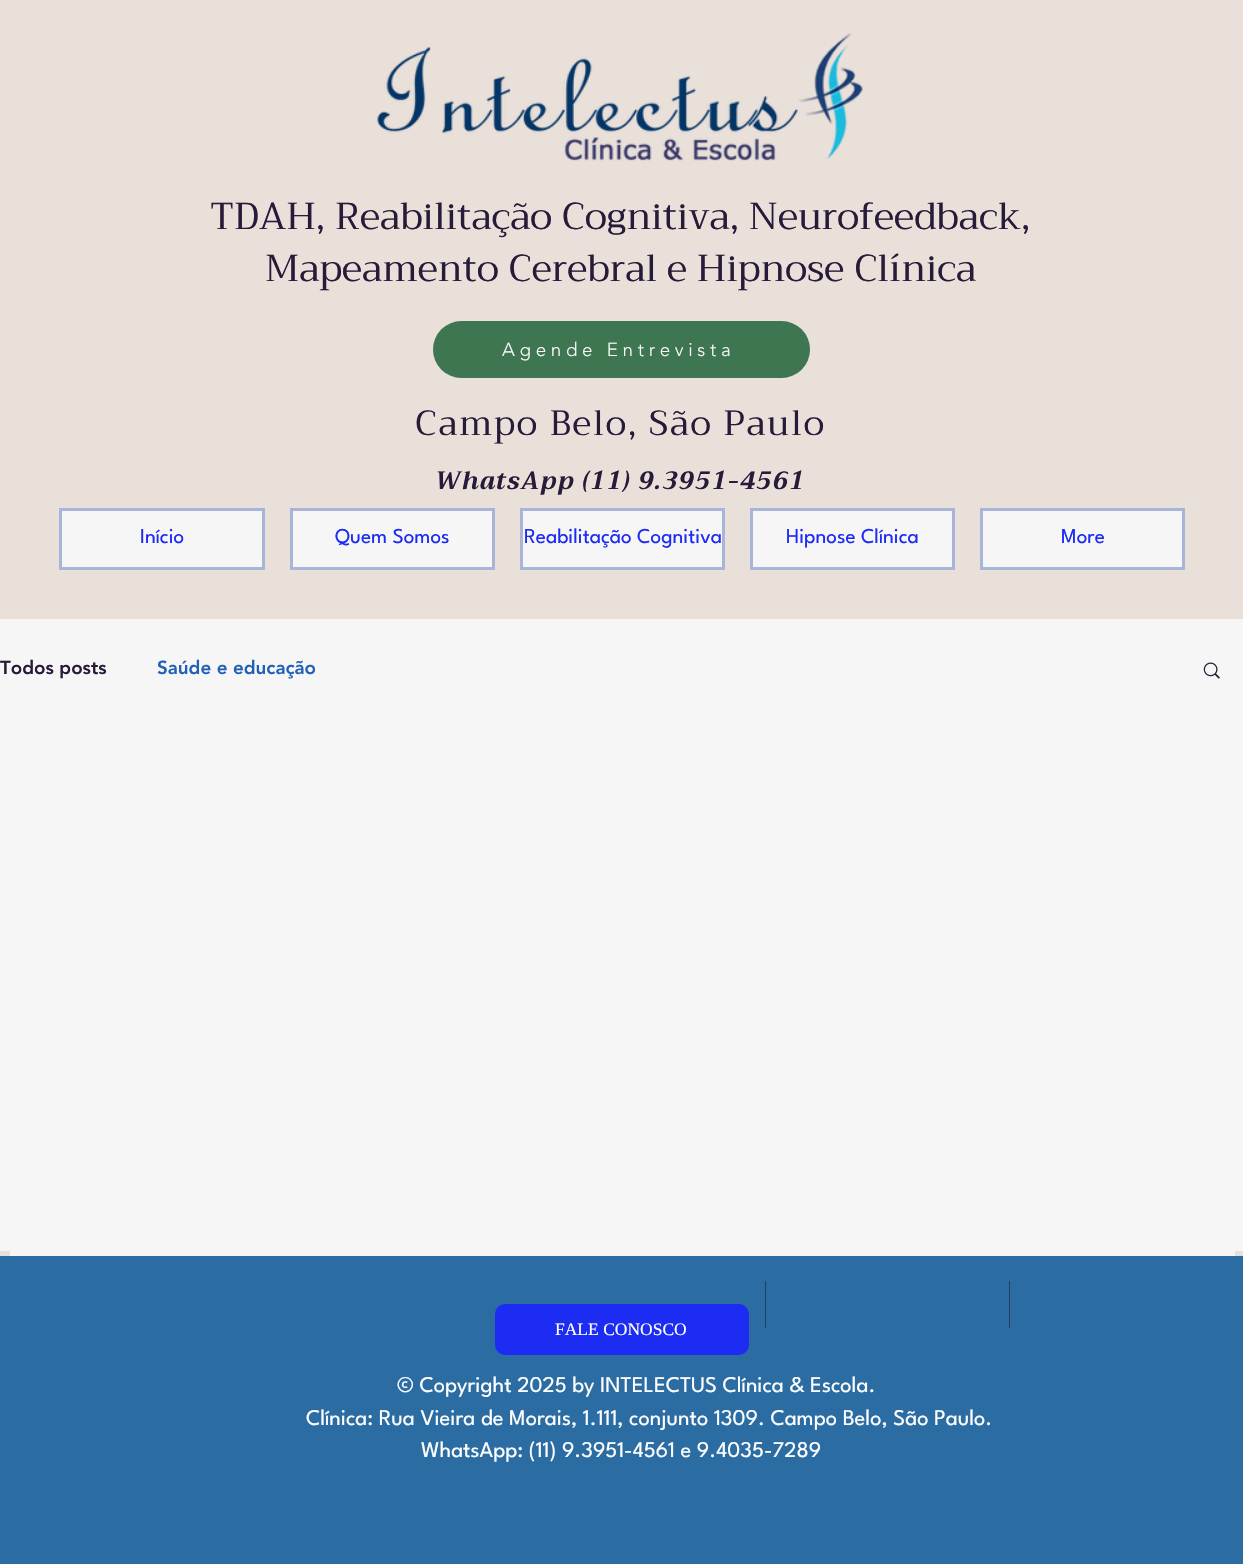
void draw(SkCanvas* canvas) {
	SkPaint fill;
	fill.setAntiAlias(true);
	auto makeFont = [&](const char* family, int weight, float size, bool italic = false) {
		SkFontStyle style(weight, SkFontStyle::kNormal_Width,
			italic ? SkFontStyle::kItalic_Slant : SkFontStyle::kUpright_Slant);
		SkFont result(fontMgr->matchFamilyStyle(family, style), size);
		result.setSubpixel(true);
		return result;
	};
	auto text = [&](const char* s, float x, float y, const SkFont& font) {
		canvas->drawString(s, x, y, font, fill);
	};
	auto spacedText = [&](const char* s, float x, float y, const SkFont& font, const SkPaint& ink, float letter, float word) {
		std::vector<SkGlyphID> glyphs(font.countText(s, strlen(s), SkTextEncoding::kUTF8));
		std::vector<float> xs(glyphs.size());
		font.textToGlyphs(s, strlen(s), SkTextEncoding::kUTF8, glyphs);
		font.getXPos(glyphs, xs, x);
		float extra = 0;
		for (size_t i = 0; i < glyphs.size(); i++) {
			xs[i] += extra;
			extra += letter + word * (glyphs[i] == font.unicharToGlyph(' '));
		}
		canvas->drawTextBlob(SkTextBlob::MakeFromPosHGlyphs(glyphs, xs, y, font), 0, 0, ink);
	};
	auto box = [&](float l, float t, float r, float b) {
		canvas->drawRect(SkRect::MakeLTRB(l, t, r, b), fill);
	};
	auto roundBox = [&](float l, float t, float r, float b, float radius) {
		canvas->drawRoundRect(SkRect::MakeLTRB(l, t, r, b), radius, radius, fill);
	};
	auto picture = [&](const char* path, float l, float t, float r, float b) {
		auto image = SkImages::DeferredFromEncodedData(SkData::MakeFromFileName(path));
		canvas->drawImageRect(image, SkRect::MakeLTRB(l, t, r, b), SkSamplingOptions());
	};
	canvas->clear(0xFFEAE0DA);
	picture("image0.png", 377, 33, 863, 161);
	fill.setColor(0xFF3F7652);
	roundBox(433, 321, 810, 378, 28.5f);
	fill.setColor(0xFFF6F6F6);
	canvas->drawRect(SkRect::MakeLTRB(60.5f, 509.5f, 263.5f, 568.5f), fill);
	fill.setStyle(SkPaint::kStroke_Style);
	fill.setStrokeWidth(3);
	fill.setColor(0xFFA9B5D8);
	canvas->drawRect(SkRect::MakeLTRB(60.5f, 509.5f, 263.5f, 568.5f), fill);
	fill.setStyle(SkPaint::kFill_Style);
	fill.setColor(0xFFF6F6F6);
	canvas->drawRect(SkRect::MakeLTRB(291.5f, 509.5f, 493.5f, 568.5f), fill);
	fill.setStyle(SkPaint::kStroke_Style);
	fill.setColor(0xFFA9B5D8);
	canvas->drawRect(SkRect::MakeLTRB(291.5f, 509.5f, 493.5f, 568.5f), fill);
	fill.setStyle(SkPaint::kFill_Style);
	fill.setColor(0xFFF6F6F6);
	canvas->drawRect(SkRect::MakeLTRB(521.5f, 509.5f, 723.5f, 568.5f), fill);
	fill.setStyle(SkPaint::kStroke_Style);
	fill.setColor(0xFFA9B5D8);
	canvas->drawRect(SkRect::MakeLTRB(521.5f, 509.5f, 723.5f, 568.5f), fill);
	fill.setStyle(SkPaint::kFill_Style);
	fill.setColor(0xFFF6F6F6);
	canvas->drawRect(SkRect::MakeLTRB(751.5f, 509.5f, 953.5f, 568.5f), fill);
	fill.setStyle(SkPaint::kStroke_Style);
	fill.setColor(0xFFA9B5D8);
	canvas->drawRect(SkRect::MakeLTRB(751.5f, 509.5f, 953.5f, 568.5f), fill);
	fill.setStyle(SkPaint::kFill_Style);
	fill.setColor(0xFFF6F6F6);
	canvas->drawRect(SkRect::MakeLTRB(981.5f, 509.5f, 1183.5f, 568.5f), fill);
	fill.setStyle(SkPaint::kStroke_Style);
	fill.setColor(0xFFA9B5D8);
	canvas->drawRect(SkRect::MakeLTRB(981.5f, 509.5f, 1183.5f, 568.5f), fill);
	fill.setStyle(SkPaint::kFill_Style);
	fill.setColor(0xFFF6F6F6);
	box(0, 619, 1243, 1251);
	picture("image1.png", 1203, 662, 1220, 679);
	box(10, 1251, 1235, 1256);
	fill.setColor(0xFF2B6CA3);
	box(0, 1256, 1243, 1564);
	fill.setColor(0xFF293B63);
	box(765, 1281, 766, 1328);
	box(1009, 1281, 1010, 1328);
	fill.setColor(0xFF1D2CF3);
	roundBox(495, 1304, 749, 1355, 10);
	auto font1 = makeFont("Trirong", 400, 37.5f);
	fill.setColor(0xFF281A39);
	text("TDAH, Reabilitação Cognitiva, Neurofeedback,", 210, 229, font1);
	text("Mapeamento Cerebral e Hipnose Clínica", 265, 281, font1);
	auto font2 = makeFont("Trirong", 400, 35);
	spacedText("Campo Belo, São Paulo", 415, 435, font2, fill, 1.75f, 0);
	auto font3 = makeFont("Trirong", 700, 25, true);
	spacedText("WhatsApp (11) 9.3951-4561", 435, 489, font3, fill, 1.25f, 0);
	auto font4 = makeFont("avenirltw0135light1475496", 300, 18.75f);
	fill.setColor(0xFFF6F6F6);
	spacedText("Agende Entrevista", 502, 356, font4, fill, 4.7f, 0);
	auto font5 = makeFont("League Spartan", 400, 21.25f);
	fill.setColor(0xFF1D2CF3);
	text("Início", 140, 543, font5);
	text("Quem Somos", 335, 543, font5);
	text("Reabilitação Cognitiva", 524, 543, font5);
	text("Hipnose Clínica", 786, 543, font5);
	text("More", 1061, 543, font5);
	auto font6 = makeFont("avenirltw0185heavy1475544", 900, 18.75f);
	fill.setColor(0xFF281A39);
	text("Todos posts", 0, 674, font6);
	fill.setColor(0xFF2061B7);
	text("Saúde e educação", 157, 674, font6);
	auto font7 = makeFont("Liberation Serif", 400, 17.5f);
	fill.setColor(0xFFFFFFFF);
	text("FALE CONOSCO", 555, 1335, font7);
	auto font8 = makeFont("League Spartan", 400, 22.5f);
	text("© Copyright 2025 by INTELECTUS Clínica & Escola.", 397, 1392, font8);
	text("Clínica: Rua Vieira de Morais, 1.111, conjunto 1309. Campo Belo, São Paulo.", 306, 1425, font8);
	text("WhatsApp: (11) 9.3951-4561 e 9.4035-7289", 421, 1457, font8);
}
